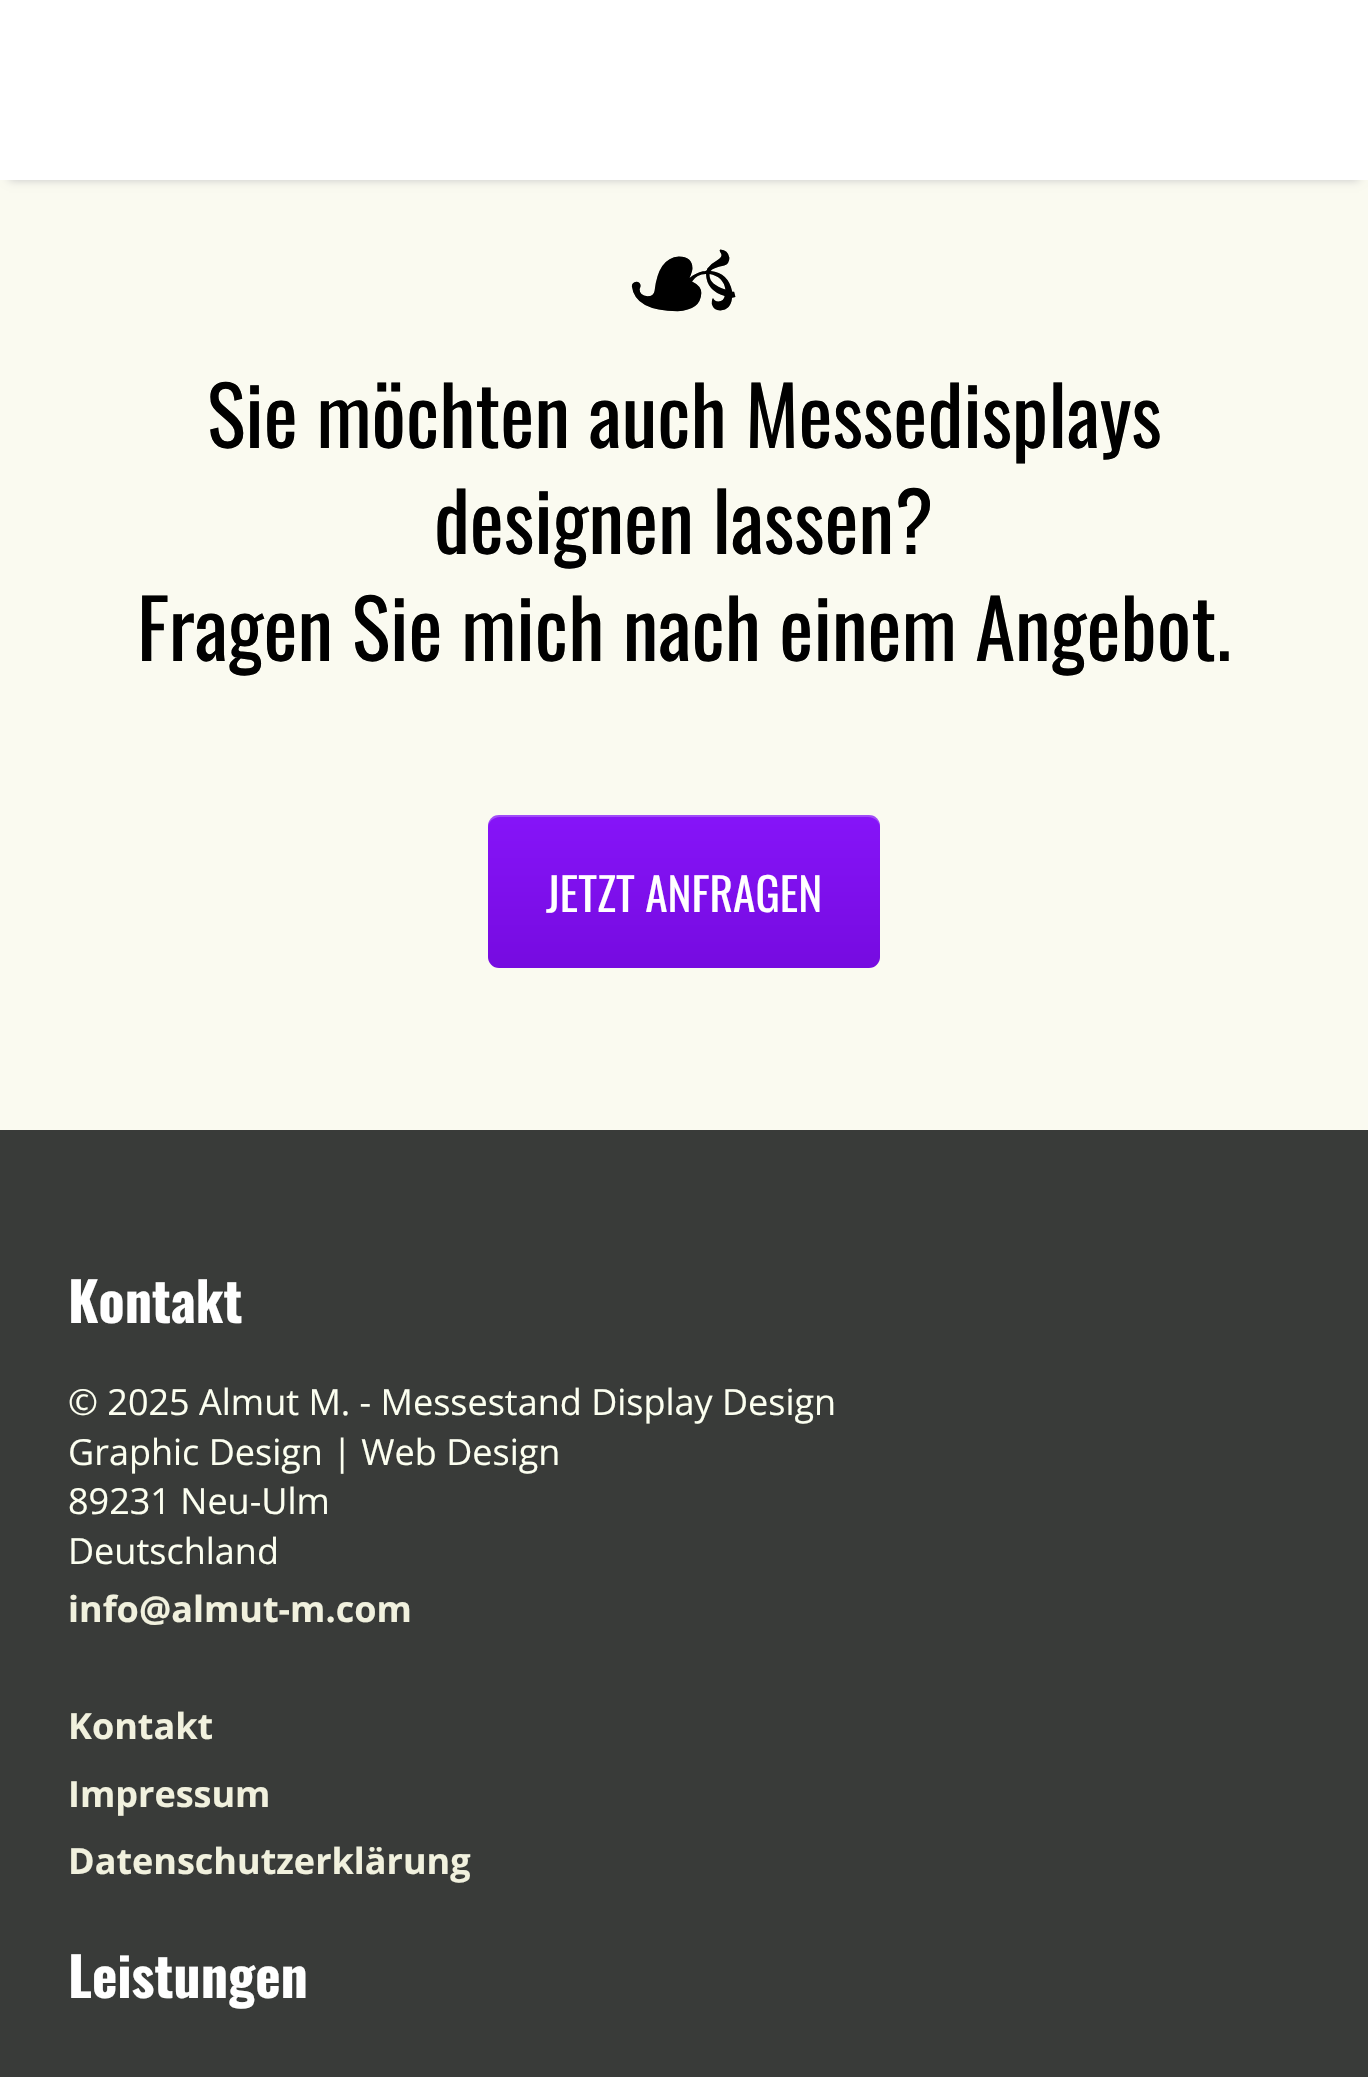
void draw(SkCanvas* canvas) {
	SkPaint fill;
	fill.setAntiAlias(true);
	auto makeFont = [&](const char* family, int weight, float size, bool italic = false) {
		SkFontStyle style(weight, SkFontStyle::kNormal_Width,
			italic ? SkFontStyle::kItalic_Slant : SkFontStyle::kUpright_Slant);
		SkFont result(fontMgr->matchFamilyStyle(family, style), size);
		result.setSubpixel(true);
		return result;
	};
	auto text = [&](const char* s, float x, float y, const SkFont& font) {
		canvas->drawString(s, x, y, font, fill);
	};
	auto box = [&](float l, float t, float r, float b) {
		canvas->drawRect(SkRect::MakeLTRB(l, t, r, b), fill);
	};
	auto roundBox = [&](float l, float t, float r, float b, float radius) {
		canvas->drawRoundRect(SkRect::MakeLTRB(l, t, r, b), radius, radius, fill);
	};
	canvas->clear(0xFFFAFAF0);
	fill.setColor(0xFFC7C7C7);
	fill.setMaskFilter(SkMaskFilter::MakeBlur(kNormal_SkBlurStyle, 4.5f));
	canvas->drawRect(SkRect::MakeLTRB(9, 18, 1359, 180), fill);
	fill.setMaskFilter(nullptr);
	fill.setColor(0xFFFFFFFF);
	box(0, 0, 1368, 180);
	{
		const SkColor colors[] = {0xFF8614F8, 0xFF760BE0};
		const float stops[] = {0, 1};
		const SkPoint ends[] = {{684, 815}, {684, 968}};
		fill.setShader(SkGradientShader::MakeLinear(ends, colors, stops, 2, SkTileMode::kClamp));
		fill.setAlpha(255);
	}
	roundBox(488, 815, 880, 968, 11);
	fill.setShader(nullptr);
	fill.setColor(0x40F5F4F7);
	canvas->drawPath(SkPathBuilder().moveTo(500, 817).lineTo(868, 817).cubicTo(875, 817, 880, 822, 880, 828).cubicTo(880, 822, 878, 817, 871, 815).lineTo(497, 815).cubicTo(490, 817, 488, 822, 488, 828).cubicTo(488, 822, 493, 817, 500, 817).close().detach(), fill);
	fill.setColor(0xFF393B39);
	box(0, 1130, 1368, 2077);
	auto font1 = makeFont("DejaVu Sans", 400, 142);
	fill.setColor(0xFF000000);
	text("☙", 620, 331, font1);
	auto font2 = makeFont("Oswald", 400, 81);
	text("Sie möchten auch Messedisplays", 207, 448, font2);
	text("designen lassen?", 434, 554, font2);
	text("Fragen Sie mich nach einem Angebot.", 137, 661, font2);
	auto font3 = makeFont("Oswald", 400, 45.5f);
	fill.setColor(0xFFFFFFFF);
	text("JETZT ANFRAGEN", 546, 912, font3);
	auto font4 = makeFont("Oswald", 700, 54);
	text("Kontakt", 68, 1323, font4);
	auto font5 = makeFont("Open Sans", 400, 36);
	fill.setColor(0xFFFCFFF0);
	text("© 2025 Almut M. - Messestand Display Design", 68, 1415, font5);
	text("Graphic Design | Web Design", 68, 1465, font5);
	text("89231 Neu-Ulm", 68, 1514, font5);
	text("Deutschland", 68, 1564, font5);
	auto font6 = makeFont("Open Sans", 700, 36);
	fill.setColor(0xFFF1F1DE);
	text("info@almut-m.com", 68, 1622, font6);
	text("Kontakt", 68, 1739, font6);
	text("Impressum", 68, 1807, font6);
	text("Datenschutzerklärung", 68, 1874, font6);
	fill.setColor(0xFFFFFFFF);
	text("Leistungen", 68, 1998, font4);
}
